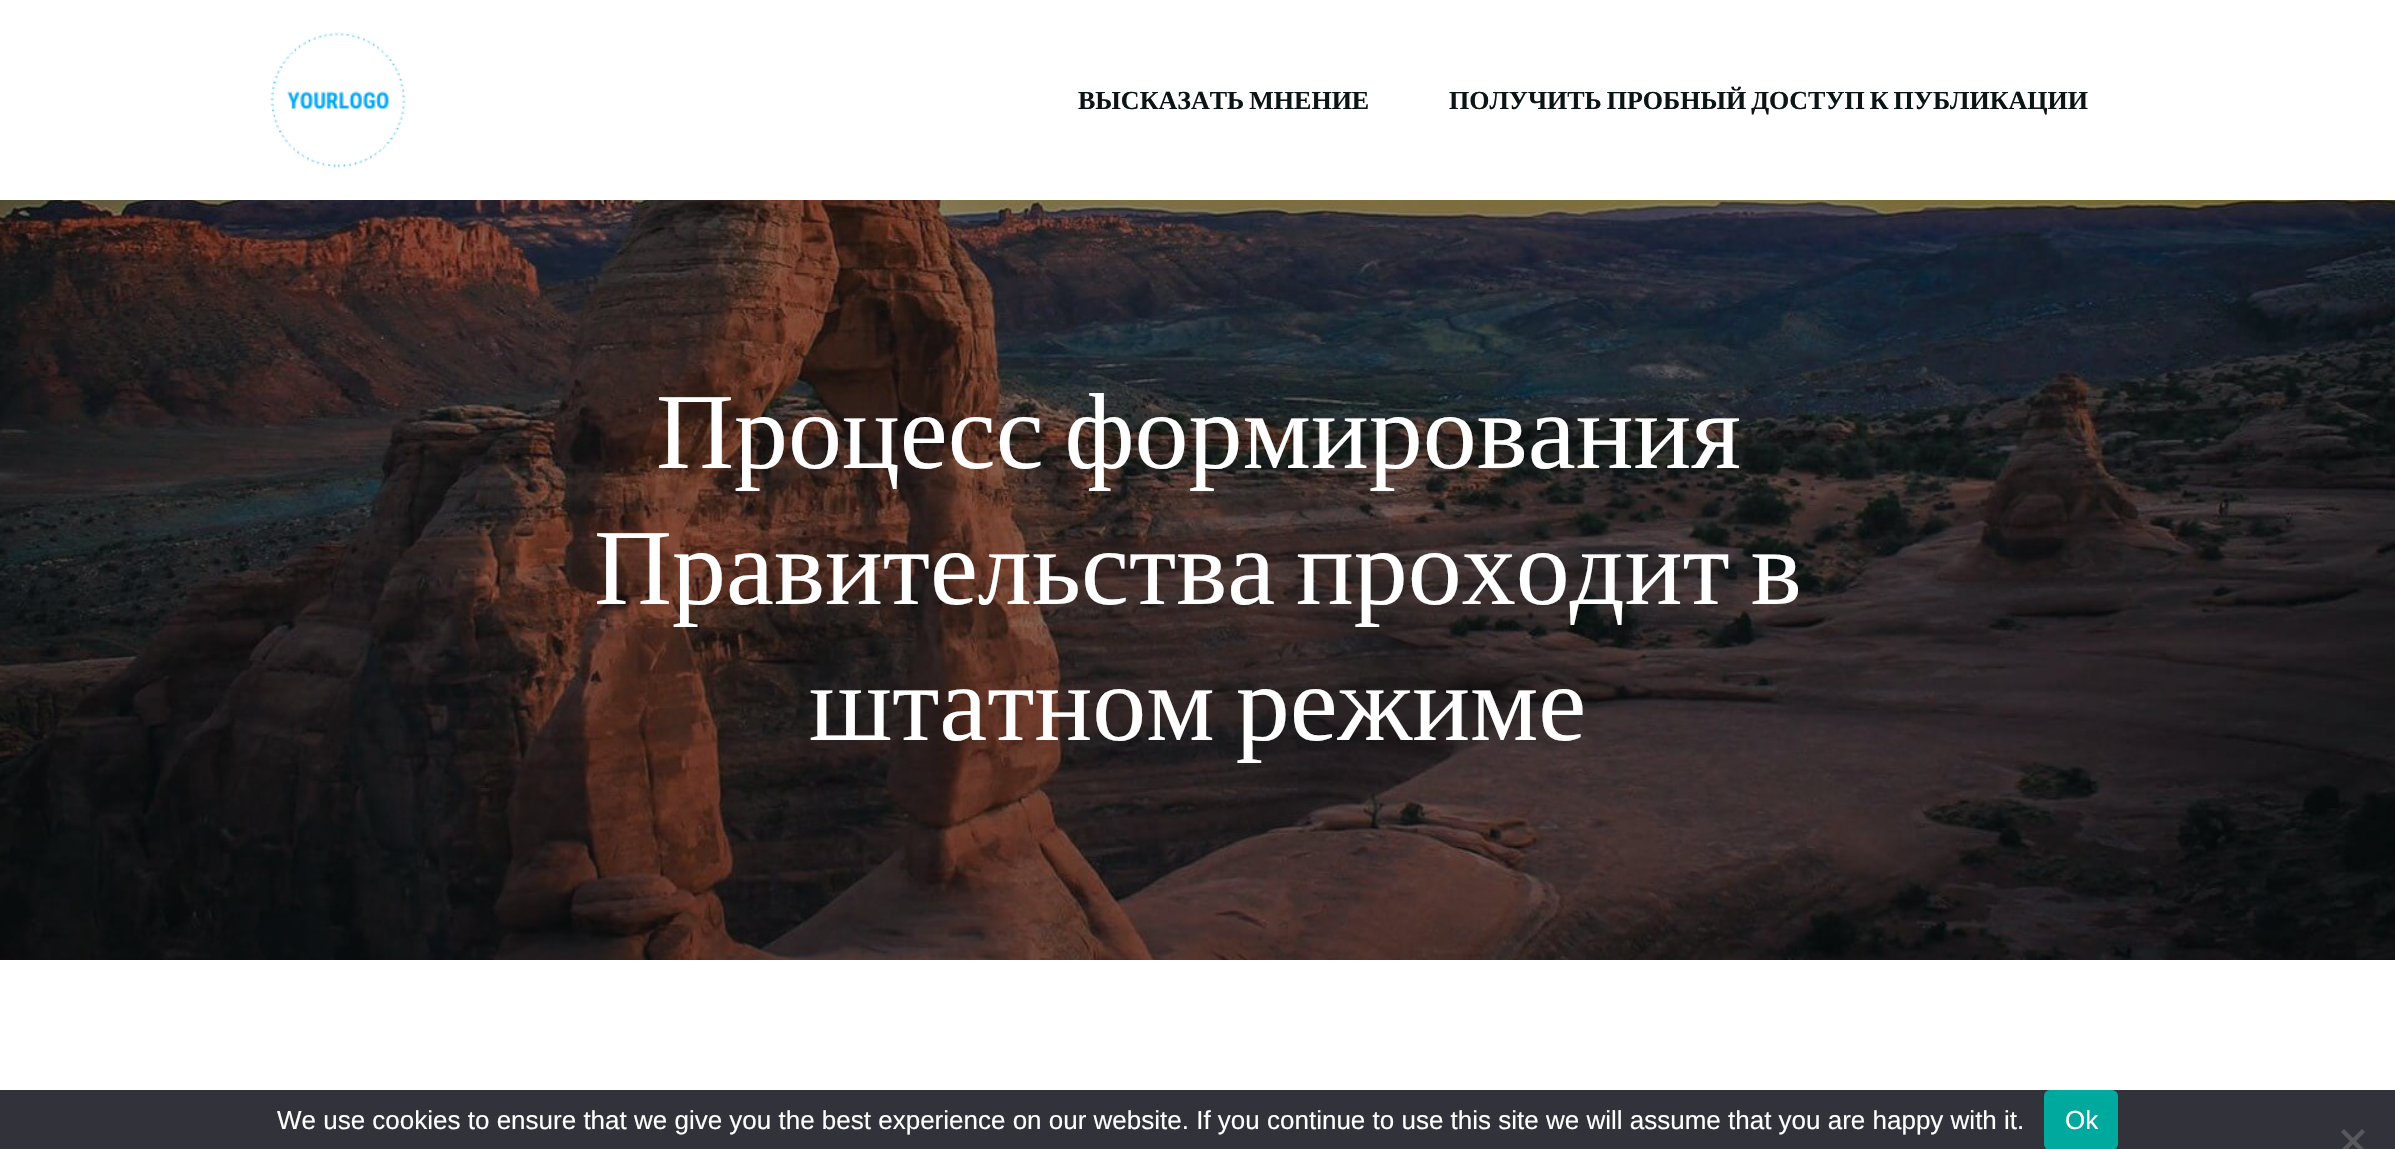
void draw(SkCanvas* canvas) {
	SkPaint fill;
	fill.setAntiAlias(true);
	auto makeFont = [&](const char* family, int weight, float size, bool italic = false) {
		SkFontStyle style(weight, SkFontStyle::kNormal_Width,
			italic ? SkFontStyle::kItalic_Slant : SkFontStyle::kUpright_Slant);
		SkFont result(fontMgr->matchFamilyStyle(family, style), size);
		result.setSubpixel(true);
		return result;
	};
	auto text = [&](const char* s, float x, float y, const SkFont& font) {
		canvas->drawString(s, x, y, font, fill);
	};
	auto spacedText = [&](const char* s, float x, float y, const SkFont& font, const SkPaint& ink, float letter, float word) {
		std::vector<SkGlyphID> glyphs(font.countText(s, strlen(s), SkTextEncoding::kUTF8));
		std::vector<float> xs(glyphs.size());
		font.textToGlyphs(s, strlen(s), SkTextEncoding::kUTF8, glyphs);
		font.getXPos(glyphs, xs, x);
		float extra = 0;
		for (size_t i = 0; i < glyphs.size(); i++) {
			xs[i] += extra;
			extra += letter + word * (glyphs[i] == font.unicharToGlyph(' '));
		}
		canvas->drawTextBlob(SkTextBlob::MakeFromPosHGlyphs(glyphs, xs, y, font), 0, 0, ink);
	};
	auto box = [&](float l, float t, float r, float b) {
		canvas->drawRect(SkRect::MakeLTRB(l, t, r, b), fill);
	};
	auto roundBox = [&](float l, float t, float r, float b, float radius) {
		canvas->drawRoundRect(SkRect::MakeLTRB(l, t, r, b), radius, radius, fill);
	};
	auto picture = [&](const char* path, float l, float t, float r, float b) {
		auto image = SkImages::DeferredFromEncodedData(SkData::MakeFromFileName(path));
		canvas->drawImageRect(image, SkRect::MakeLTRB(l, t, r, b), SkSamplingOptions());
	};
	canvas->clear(0xFFFFFFFF);
	picture("image0.png", 270, 32, 406, 168);
	picture("image1.png", 0, 200, 2395, 960);
	fill.setColor(0xFF32323A);
	box(0, 1090, 2395, 1149);
	fill.setColor(0xFF00A99D);
	roundBox(2044, 1090, 2118, 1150, 6);
	fill.setColor(0xFF59595D);
	canvas->drawPath(SkPathBuilder().moveTo(2362, 1129).lineTo(2365, 1132).lineTo(2344, 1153).lineTo(2341, 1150).close().detach(), fill);
	canvas->drawPath(SkPathBuilder().moveTo(2341, 1132).lineTo(2344, 1129).lineTo(2365, 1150).lineTo(2362, 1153).close().detach(), fill);
	auto font1 = makeFont("Liberation Serif", 700, 26);
	fill.setColor(0xFF0C1416);
	spacedText("ВЫСКАЗАТЬ МНЕНИЕ", 1078, 109, font1, fill, 0, -1.5f);
	spacedText("ПОЛУЧИТЬ ПРОБНЫЙ ДОСТУП К ПУБЛИКАЦИИ", 1449, 109, font1, fill, 0, -1.5f);
	auto font2 = makeFont("Liberation Serif", 400, 108);
	fill.setColor(0xFFFFFFFF);
	spacedText("Процесс формирования", 656, 468, font2, fill, 0, -6);
	spacedText("Правительства проходит в", 594, 604, font2, fill, 0, -6);
	spacedText("штатном режиме", 809, 740, font2, fill, 0, -6);
	auto font3 = makeFont("Liberation Sans", 400, 26);
	text("We use cookies to ensure that we give you the best experience on our website. If you continue to use this site we will assume that you are happy with it.", 277, 1129, font3);
	text("Ok", 2065, 1129, font3);
}
